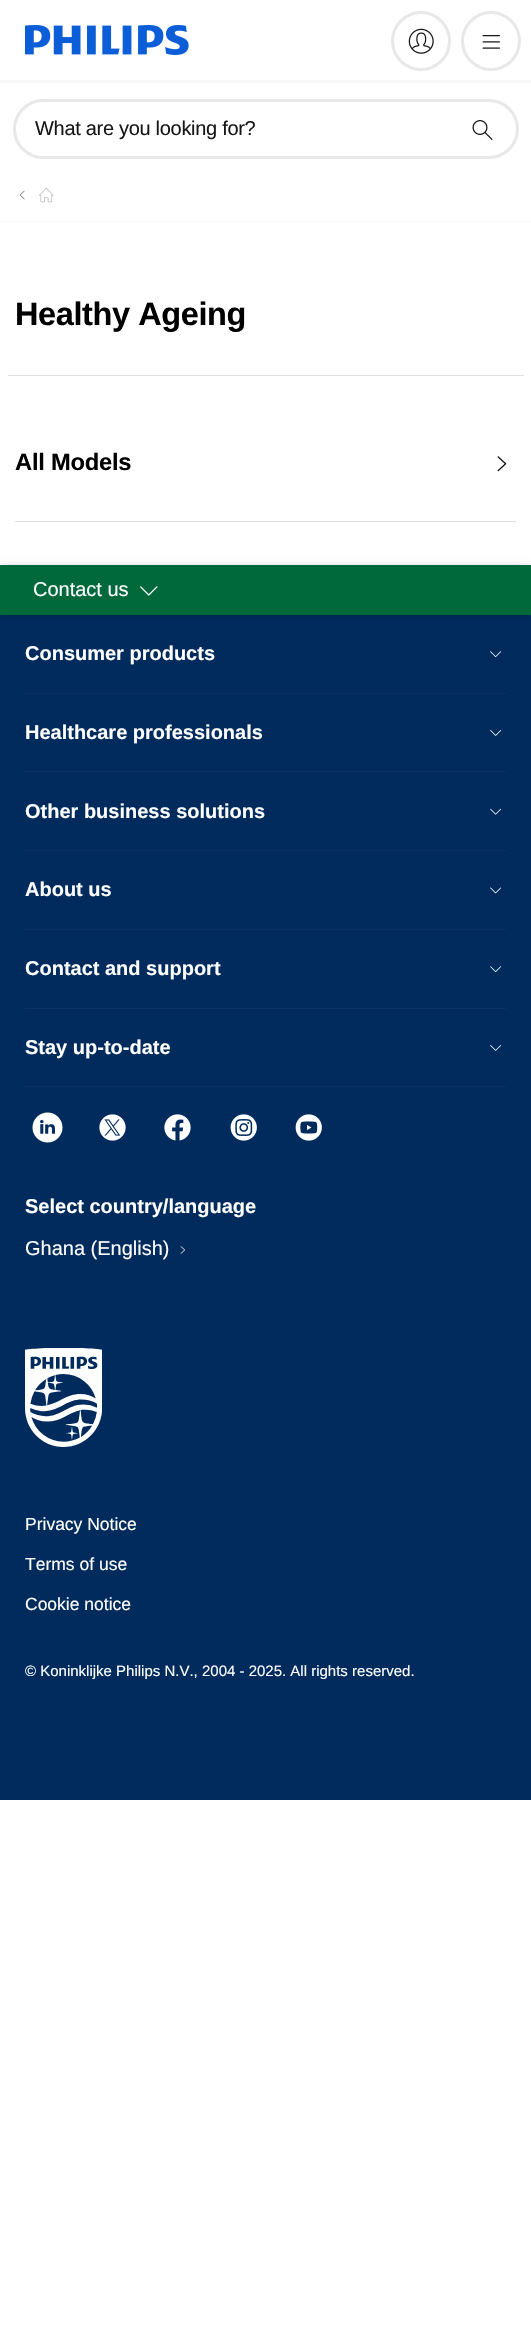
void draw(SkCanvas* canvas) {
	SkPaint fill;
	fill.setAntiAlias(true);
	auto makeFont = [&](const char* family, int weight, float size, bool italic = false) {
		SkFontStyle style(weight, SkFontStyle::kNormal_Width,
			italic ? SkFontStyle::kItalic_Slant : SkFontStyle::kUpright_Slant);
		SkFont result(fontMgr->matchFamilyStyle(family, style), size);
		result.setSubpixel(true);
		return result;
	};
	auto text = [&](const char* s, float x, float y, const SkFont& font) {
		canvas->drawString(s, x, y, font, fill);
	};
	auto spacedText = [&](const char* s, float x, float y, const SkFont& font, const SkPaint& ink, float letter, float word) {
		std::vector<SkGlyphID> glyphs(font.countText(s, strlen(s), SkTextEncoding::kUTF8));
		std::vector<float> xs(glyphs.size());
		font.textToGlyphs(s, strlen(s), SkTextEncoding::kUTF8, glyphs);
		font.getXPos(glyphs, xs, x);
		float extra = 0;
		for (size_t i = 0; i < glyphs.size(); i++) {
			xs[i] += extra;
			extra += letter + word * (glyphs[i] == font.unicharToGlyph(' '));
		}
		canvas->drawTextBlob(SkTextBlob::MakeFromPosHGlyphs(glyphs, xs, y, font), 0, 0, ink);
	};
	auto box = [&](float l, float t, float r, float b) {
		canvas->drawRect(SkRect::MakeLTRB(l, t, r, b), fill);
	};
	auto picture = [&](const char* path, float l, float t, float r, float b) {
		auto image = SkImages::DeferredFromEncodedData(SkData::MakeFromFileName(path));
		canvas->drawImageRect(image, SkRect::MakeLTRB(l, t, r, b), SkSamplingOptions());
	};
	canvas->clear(0xFFFFFFFF);
	picture("image0.png", 25, 25, 189, 55);
	fill.setColor(0xFFF7F7F7);
	box(0, 80, 531, 83);
	fill.setStyle(SkPaint::kStroke_Style);
	fill.setStrokeWidth(3);
	fill.setColor(0xFFE8E8E8);
	canvas->drawCircle(421, 41, 28.5f, fill);
	picture("image1.png", 408, 28, 434, 54);
	canvas->drawCircle(491, 41, 28.5f, fill);
	picture("image2.png", 482, 35, 500, 49);
	canvas->drawRoundRect(SkRect::MakeLTRB(14.5f, 100.5f, 517.5f, 157.5f), 28.5f, 28.5f, fill);
	picture("image3.png", 472, 120, 493, 140);
	fill.setStyle(SkPaint::kFill_Style);
	fill.setColor(0xFFF7F7F7);
	box(0, 221, 531, 222);
	picture("image4.png", 19, 190, 25, 200);
	picture("image5.png", 39, 187, 54, 203);
	fill.setColor(0xFFE0E0E8);
	box(8, 375, 524, 376);
	fill.setColor(0xFFE0E0E0);
	box(15, 521, 516, 522);
	picture("image6.png", 497, 456, 507, 472);
	fill.setColor(0xFF002B5C);
	box(0, 615, 531, 1800);
	fill.setColor(0x26000000);
	fill.setMaskFilter(SkMaskFilter::MakeBlur(kNormal_SkBlurStyle, 3));
	canvas->drawRect(SkRect::MakeLTRB(0, 565, 531, 615), fill);
	fill.setMaskFilter(nullptr);
	fill.setColor(0xFF00693C);
	box(0, 565, 531, 615);
	picture("image7.png", 140, 586, 158, 596);
	fill.setColor(0xFF0A3363);
	box(25, 693, 506, 694);
	picture("image8.png", 490, 651, 502, 658);
	box(25, 771, 506, 772);
	picture("image9.png", 490, 730, 502, 736);
	box(25, 850, 506, 851);
	picture("image10.png", 490, 808, 502, 815);
	box(25, 929, 506, 930);
	picture("image11.png", 490, 887, 501, 894);
	box(25, 1008, 506, 1009);
	picture("image8.png", 490, 966, 502, 973);
	box(25, 1086, 506, 1087);
	picture("image9.png", 490, 1045, 502, 1051);
	picture("image12.png", 32, 1112, 63, 1143);
	picture("image13.png", 99, 1114, 126, 1141);
	picture("image14.png", 164, 1114, 191, 1141);
	picture("image15.png", 230, 1114, 257, 1141);
	picture("image16.png", 295, 1114, 322, 1141);
	picture("image17.png", 180, 1246, 185, 1254);
	picture("image18.png", 25, 1348, 102, 1447);
	auto font1 = makeFont("Liberation Sans", 400, 20);
	fill.setColor(0xFF171717);
	spacedText("What are you looking for?", 35, 135, font1, fill, -0.3f, 0);
	auto font2 = makeFont("Liberation Sans", 700, 32.5f);
	fill.setColor(0xFF000000);
	spacedText("Healthy Ageing", 15, 325, font2, fill, -0.4f, 0);
	auto font3 = makeFont("Liberation Sans", 700, 23.75f);
	spacedText("All Models", 15, 470, font3, fill, -0.25f, 0);
	fill.setColor(0xFFFFFFFF);
	text("Contact us", 33, 596, font1);
	auto font4 = makeFont("Liberation Sans", 700, 20);
	text("Consumer products", 25, 660, font4);
	text("Healthcare professionals", 25, 739, font4);
	text("Other business solutions", 25, 818, font4);
	text("About us", 25, 896, font4);
	text("Contact and support", 25, 975, font4);
	text("Stay up-to-date", 25, 1054, font4);
	text("Select country/language", 25, 1213, font4);
	text("Ghana (English)", 25, 1255, font1);
	auto font5 = makeFont("Liberation Sans", 400, 17.5f);
	text("Privacy Notice", 25, 1530, font5);
	text("Terms of use", 25, 1570, font5);
	text("Cookie notice", 25, 1610, font5);
	auto font6 = makeFont("Liberation Sans", 400, 15);
	text("© Koninklijke Philips N.V., 2004 - 2025. All rights reserved.", 25, 1676, font6);
}
